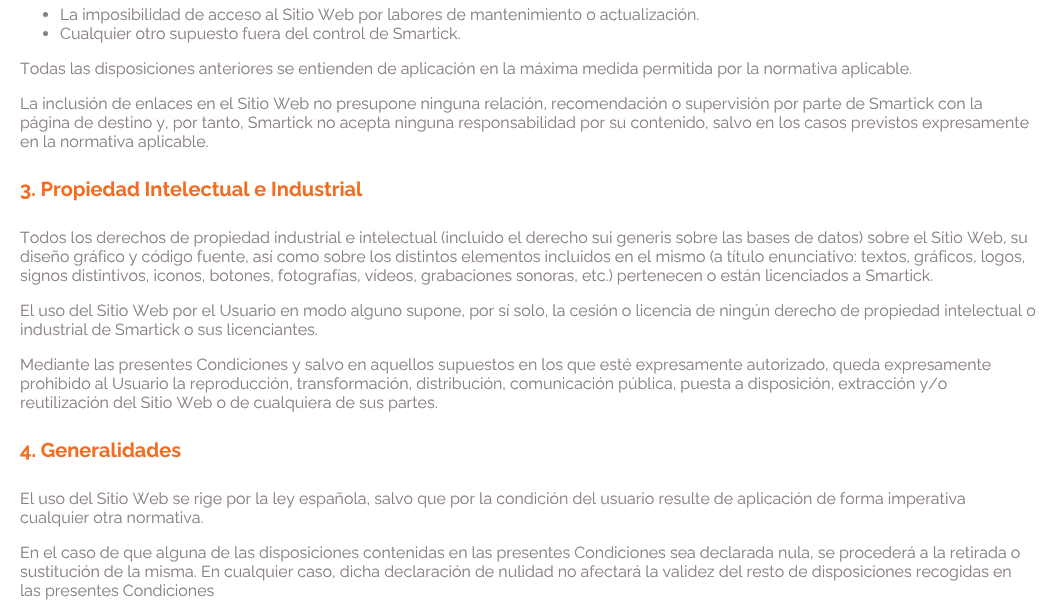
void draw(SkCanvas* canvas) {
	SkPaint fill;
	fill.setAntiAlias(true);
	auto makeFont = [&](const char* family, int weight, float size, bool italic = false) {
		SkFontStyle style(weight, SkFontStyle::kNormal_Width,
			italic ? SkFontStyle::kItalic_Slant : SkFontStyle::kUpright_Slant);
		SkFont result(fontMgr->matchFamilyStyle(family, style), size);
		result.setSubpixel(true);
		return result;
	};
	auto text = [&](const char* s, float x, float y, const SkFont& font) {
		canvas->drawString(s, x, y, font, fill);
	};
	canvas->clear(0xFFFFFFFF);
	fill.setColor(0xFF8A8080);
	canvas->drawCircle(45.5f, 14.5f, 2.5f, fill);
	canvas->drawCircle(45.5f, 33.5f, 2.5f, fill);
	auto font1 = makeFont("Raleway", 100, 16);
	text("La imposibilidad de acceso al Sitio Web por labores de mantenimiento o actualización.", 60, 20, font1);
	text("Cualquier otro supuesto fuera del control de Smartick.", 60, 39, font1);
	text("Todas las disposiciones anteriores se entienden de aplicación en la máxima medida permitida por la normativa aplicable.", 20, 74, font1);
	text("La inclusión de enlaces en el Sitio Web no presupone ninguna relación, recomendación o supervisión por parte de Smartick con la", 20, 109, font1);
	text("página de destino y, por tanto, Smartick no acepta ninguna responsabilidad por su contenido, salvo en los casos previstos expresamente", 20, 128, font1);
	text("en la normativa aplicable.", 20, 147, font1);
	auto font2 = makeFont("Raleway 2", 100, 20);
	fill.setColor(0xFFF36D21);
	text("3. Propiedad Intelectual e Industrial", 20, 196, font2);
	fill.setColor(0xFF8A8080);
	text("Todos los derechos de propiedad industrial e intelectual (incluido el derecho sui generis sobre las bases de datos) sobre el Sitio Web, su", 20, 243, font1);
	text("diseño gráfico y código fuente, así como sobre los distintos elementos incluidos en el mismo (a título enunciativo: textos, gráficos, logos,", 20, 262, font1);
	text("signos distintivos, iconos, botones, fotografías, vídeos, grabaciones sonoras, etc.) pertenecen o están licenciados a Smartick.", 20, 281, font1);
	text("El uso del Sitio Web por el Usuario en modo alguno supone, por sí solo, la cesión o licencia de ningún derecho de propiedad intelectual o", 20, 316, font1);
	text("industrial de Smartick o sus licenciantes.", 20, 335, font1);
	text("Mediante las presentes Condiciones y salvo en aquellos supuestos en los que esté expresamente autorizado, queda expresamente", 20, 370, font1);
	text("prohibido al Usuario la reproducción, transformación, distribución, comunicación pública, puesta a disposición, extracción y/o", 20, 389, font1);
	text("reutilización del Sitio Web o de cualquiera de sus partes.", 20, 408, font1);
	fill.setColor(0xFFF36D21);
	text("4. Generalidades", 20, 457, font2);
	fill.setColor(0xFF8A8080);
	text("El uso del Sitio Web se rige por la ley española, salvo que por la condición del usuario resulte de aplicación de forma imperativa", 20, 504, font1);
	text("cualquier otra normativa.", 20, 523, font1);
	text("En el caso de que alguna de las disposiciones contenidas en las presentes Condiciones sea declarada nula, se procederá a la retirada o", 20, 558, font1);
	text("sustitución de la misma. En cualquier caso, dicha declaración de nulidad no afectará la validez del resto de disposiciones recogidas en", 20, 577, font1);
	text("las presentes Condiciones", 20, 596, font1);
}
